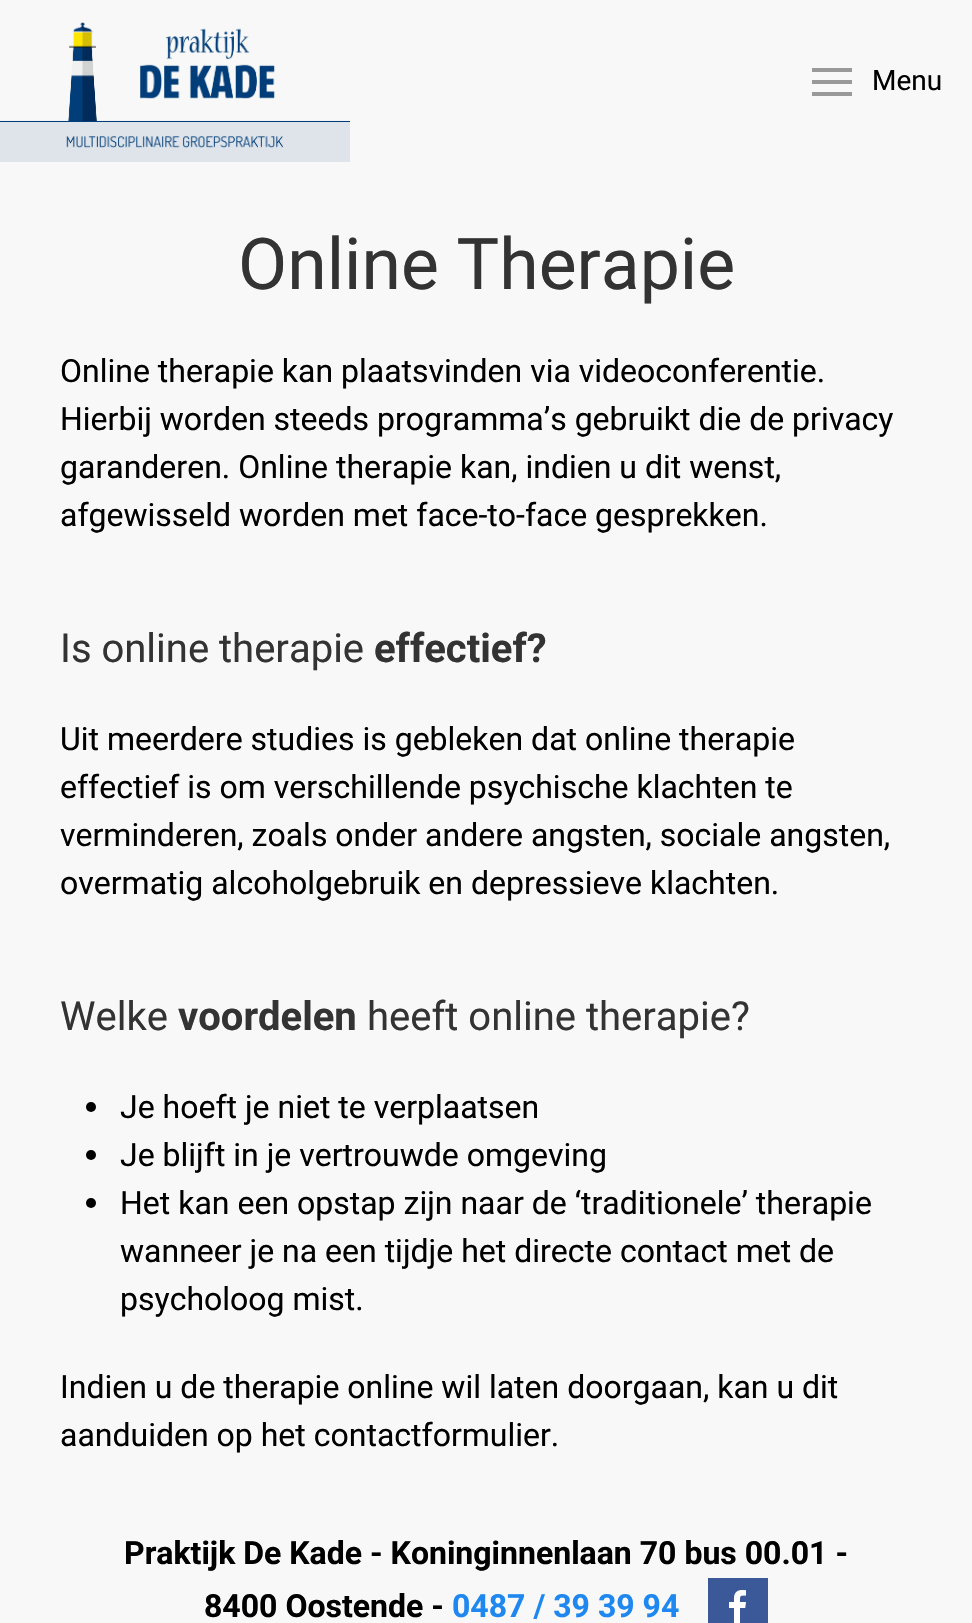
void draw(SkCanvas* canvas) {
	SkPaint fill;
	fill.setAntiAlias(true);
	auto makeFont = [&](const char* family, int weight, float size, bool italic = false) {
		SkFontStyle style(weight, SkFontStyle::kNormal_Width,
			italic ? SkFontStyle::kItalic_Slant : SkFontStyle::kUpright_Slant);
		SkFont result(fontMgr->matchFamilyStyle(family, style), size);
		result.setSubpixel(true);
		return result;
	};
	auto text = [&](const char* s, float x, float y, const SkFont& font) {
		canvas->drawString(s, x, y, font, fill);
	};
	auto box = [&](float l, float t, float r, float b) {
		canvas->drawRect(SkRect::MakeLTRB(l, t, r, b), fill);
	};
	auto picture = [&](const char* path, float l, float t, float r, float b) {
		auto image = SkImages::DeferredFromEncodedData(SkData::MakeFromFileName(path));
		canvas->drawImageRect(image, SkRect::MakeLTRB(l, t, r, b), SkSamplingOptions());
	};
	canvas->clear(0xFFF8F8F8);
	picture("image0.png", 0, 22, 350, 162);
	fill.setColor(0xFF999999);
	box(812, 68, 852, 72);
	box(812, 80, 852, 84);
	box(812, 92, 852, 96);
	fill.setColor(0xFF000000);
	canvas->drawCircle(91, 1107, 5, fill);
	canvas->drawCircle(91, 1155, 5, fill);
	canvas->drawCircle(91, 1203, 5, fill);
	fill.setColor(0xFF3B5998);
	box(708, 1578, 768, 1623);
	picture("image1.png", 729, 1590, 746, 1623);
	auto font1 = makeFont("Roboto", 400, 28);
	fill.setColor(0xFF000000);
	text("Menu", 872, 90, font1);
	auto font2 = makeFont("Roboto", 400, 71.5f);
	fill.setColor(0xFF333333);
	text("Online Therapie", 238, 289, font2);
	auto font3 = makeFont("Roboto", 400, 32);
	fill.setColor(0xFF000000);
	text("Online therapie kan plaatsvinden via videoconferentie.", 60, 382, font3);
	text("Hierbij worden steeds programma’s gebruikt die de privacy", 60, 430, font3);
	text("garanderen. Online therapie kan, indien u dit wenst,", 60, 478, font3);
	text("afgewisseld worden met face-to-face gesprekken.", 60, 526, font3);
	auto font4 = makeFont("Roboto", 400, 40);
	fill.setColor(0xFF333333);
	text("Is online therapie", 60, 662, font4);
	auto font5 = makeFont("Roboto", 700, 40);
	text("effectief?", 374, 662, font5);
	fill.setColor(0xFF000000);
	text("Uit meerdere studies is gebleken dat online therapie", 60, 750, font3);
	text("effectief is om verschillende psychische klachten te", 60, 798, font3);
	text("verminderen, zoals onder andere angsten, sociale angsten,", 60, 846, font3);
	text("overmatig alcoholgebruik en depressieve klachten.", 60, 894, font3);
	fill.setColor(0xFF333333);
	text("Welke", 60, 1030, font4);
	text("voordelen", 178, 1030, font5);
	text("heeft online therapie?", 367, 1030, font4);
	fill.setColor(0xFF000000);
	text("Je hoeft je niet te verplaatsen", 120, 1118, font3);
	text("Je blijft in je vertrouwde omgeving", 120, 1166, font3);
	text("Het kan een opstap zijn naar de ‘traditionele’ therapie", 120, 1214, font3);
	text("wanneer je na een tijdje het directe contact met de", 120, 1262, font3);
	text("psycholoog mist.", 120, 1310, font3);
	text("Indien u de therapie online wil laten doorgaan, kan u dit", 60, 1398, font3);
	text("aanduiden op het contactformulier.", 60, 1446, font3);
	auto font6 = makeFont("Roboto", 700, 32);
	text("Praktijk De Kade - Koninginnenlaan 70 bus 00.01 -", 124, 1564, font6);
	text("8400 Oostende -", 204, 1617, font6);
	fill.setColor(0xFF1E87F0);
	text("0487 / 39 39 94", 452, 1617, font6);
}
